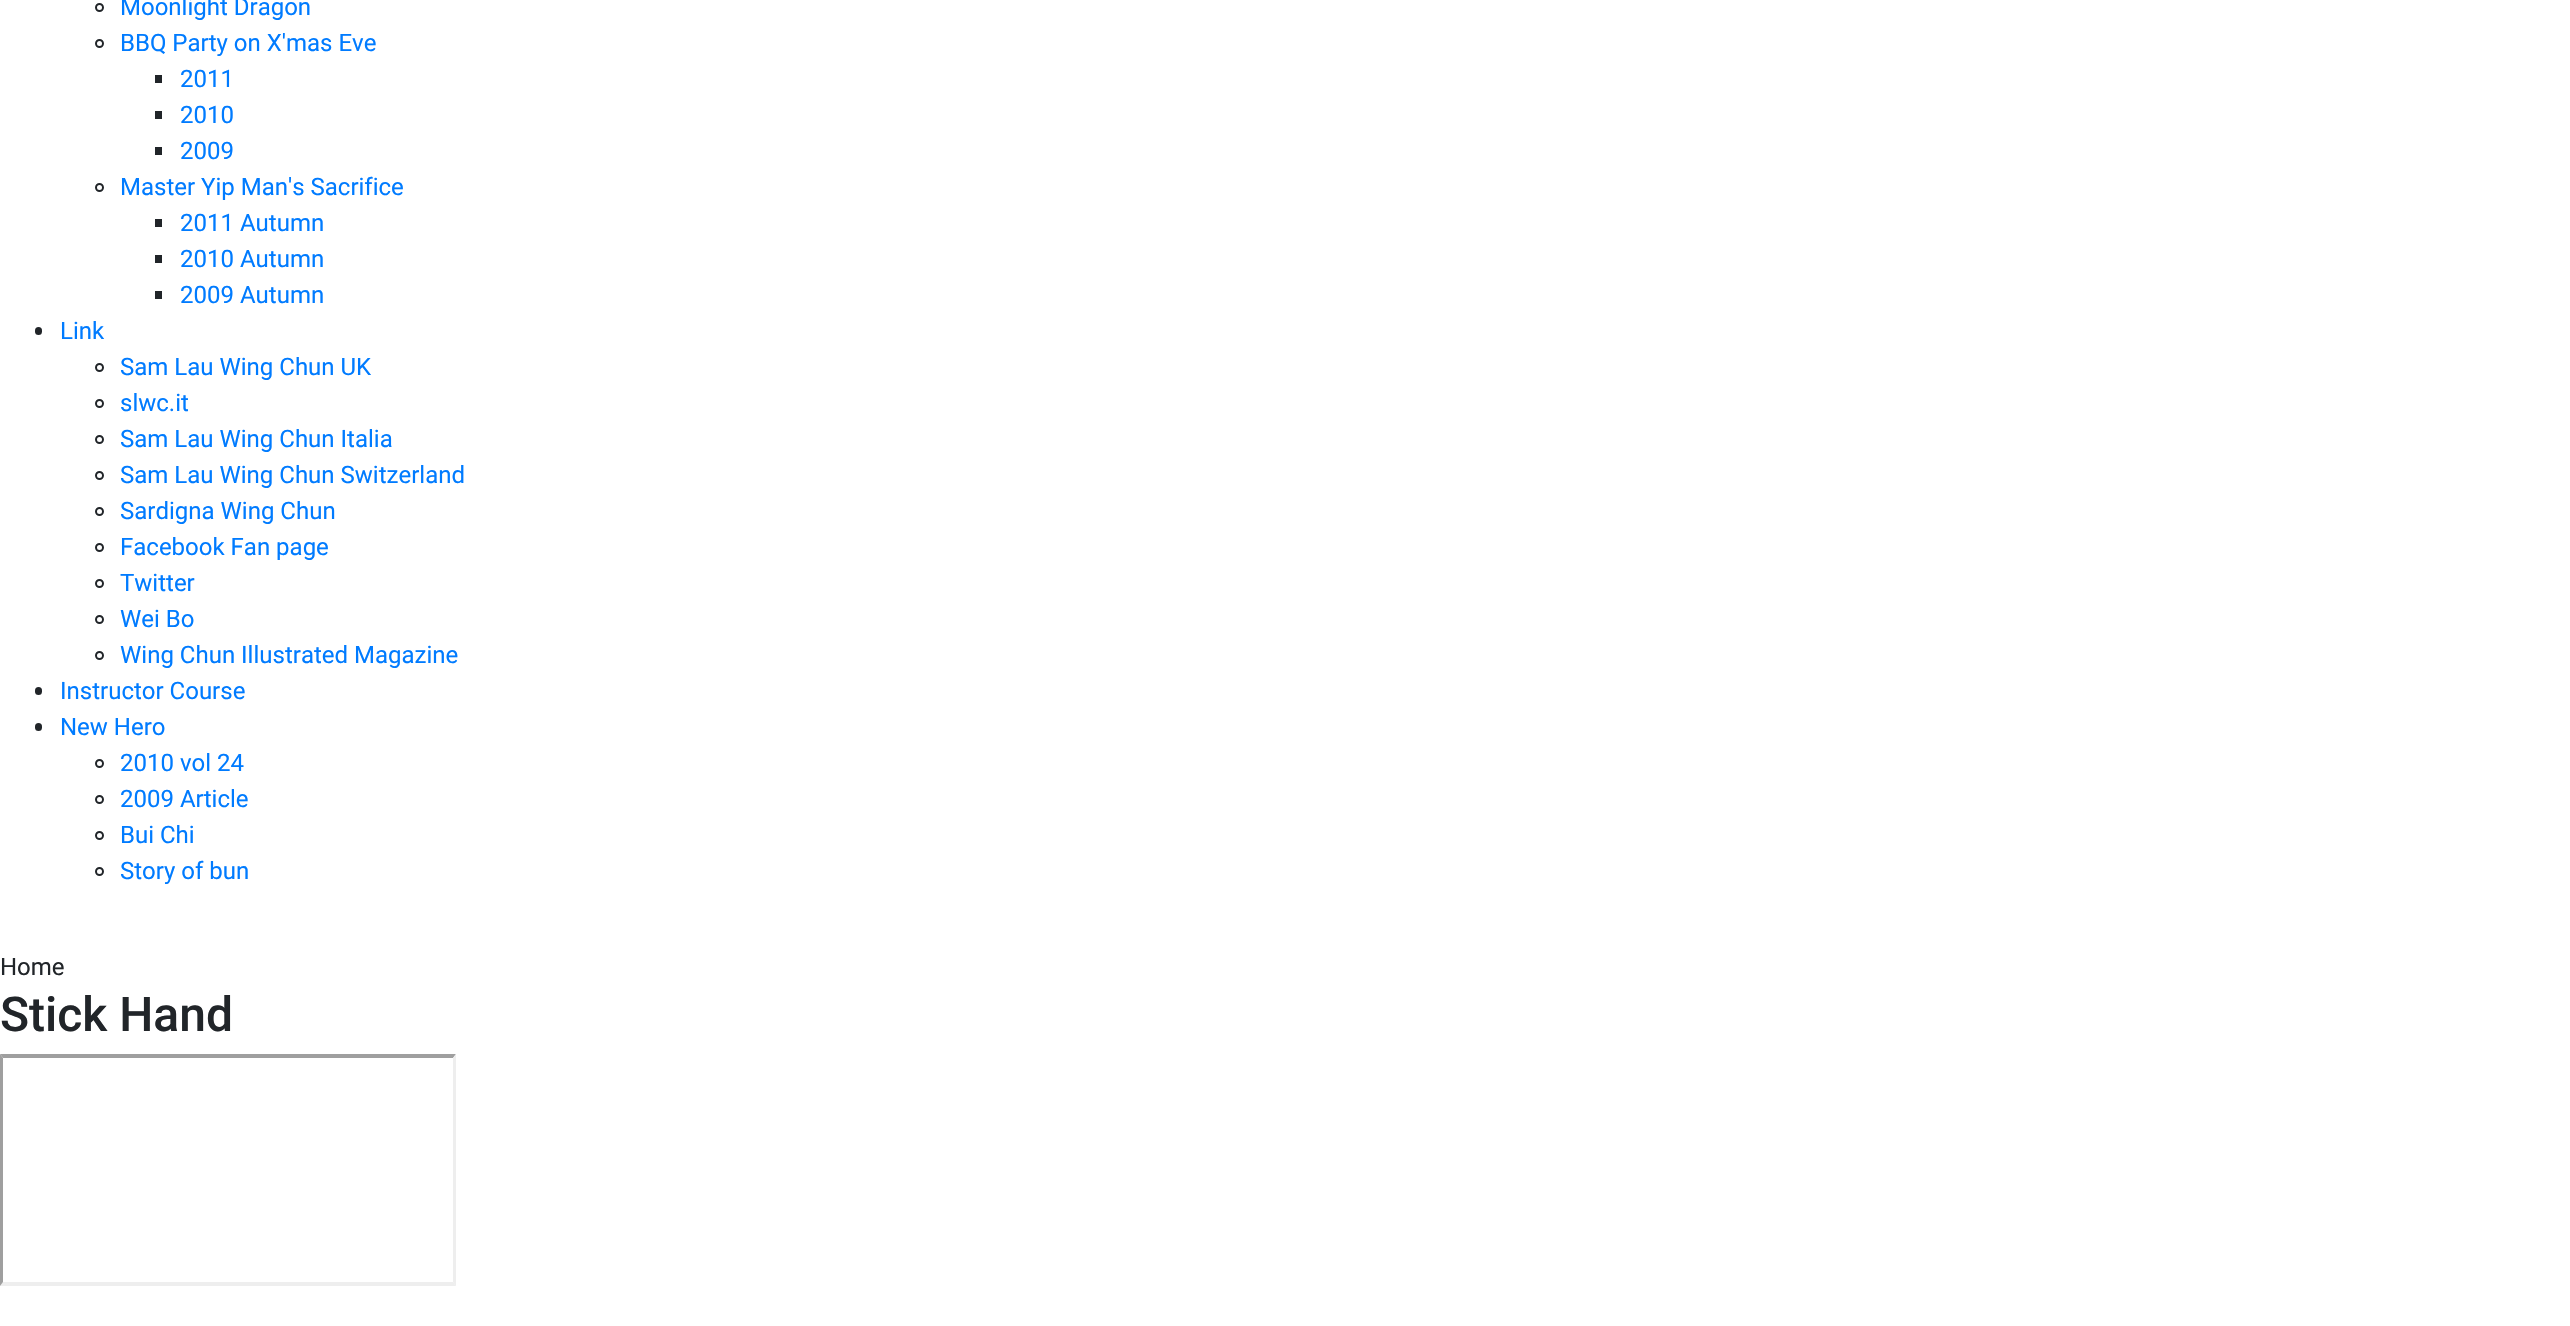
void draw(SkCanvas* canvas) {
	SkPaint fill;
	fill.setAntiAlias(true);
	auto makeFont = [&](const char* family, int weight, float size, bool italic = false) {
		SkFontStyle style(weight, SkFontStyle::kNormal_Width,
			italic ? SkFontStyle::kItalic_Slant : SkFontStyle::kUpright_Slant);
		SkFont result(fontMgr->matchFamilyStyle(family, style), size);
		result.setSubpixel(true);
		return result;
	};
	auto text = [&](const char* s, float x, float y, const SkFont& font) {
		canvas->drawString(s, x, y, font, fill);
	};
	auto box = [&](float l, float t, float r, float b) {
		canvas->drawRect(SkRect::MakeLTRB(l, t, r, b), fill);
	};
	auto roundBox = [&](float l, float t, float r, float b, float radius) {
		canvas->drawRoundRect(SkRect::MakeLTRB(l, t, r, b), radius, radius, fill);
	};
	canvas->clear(0xFFFFFFFF);
	fill.setStyle(SkPaint::kStroke_Style);
	fill.setStrokeWidth(2);
	fill.setColor(0xFF212529);
	canvas->drawCircle(99.5f, 7.5f, 3.5f, fill);
	canvas->drawCircle(99.5f, 43.5f, 3.5f, fill);
	fill.setStyle(SkPaint::kFill_Style);
	box(155, 75, 162, 83);
	box(155, 111, 162, 119);
	box(155, 147, 162, 155);
	fill.setStyle(SkPaint::kStroke_Style);
	canvas->drawCircle(99.5f, 187.5f, 3.5f, fill);
	fill.setStyle(SkPaint::kFill_Style);
	box(155, 219, 162, 227);
	box(155, 255, 162, 263);
	box(155, 291, 162, 299);
	roundBox(35, 327, 42, 335, 3.5f);
	fill.setStyle(SkPaint::kStroke_Style);
	canvas->drawCircle(99.5f, 367.5f, 3.5f, fill);
	canvas->drawCircle(99.5f, 403.5f, 3.5f, fill);
	canvas->drawCircle(99.5f, 439.5f, 3.5f, fill);
	canvas->drawCircle(99.5f, 475.5f, 3.5f, fill);
	canvas->drawCircle(99.5f, 511.5f, 3.5f, fill);
	canvas->drawCircle(99.5f, 547.5f, 3.5f, fill);
	canvas->drawCircle(99.5f, 583.5f, 3.5f, fill);
	canvas->drawCircle(99.5f, 619.5f, 3.5f, fill);
	canvas->drawCircle(99.5f, 655.5f, 3.5f, fill);
	fill.setStyle(SkPaint::kFill_Style);
	roundBox(35, 687, 42, 695, 3.5f);
	roundBox(35, 723, 42, 731, 3.5f);
	fill.setStyle(SkPaint::kStroke_Style);
	canvas->drawCircle(99.5f, 763.5f, 3.5f, fill);
	canvas->drawCircle(99.5f, 799.5f, 3.5f, fill);
	canvas->drawCircle(99.5f, 835.5f, 3.5f, fill);
	canvas->drawCircle(99.5f, 871.5f, 3.5f, fill);
	fill.setStyle(SkPaint::kFill_Style);
	fill.setColor(0xFF9F9F9F);
	canvas->drawPath(SkPathBuilder().moveTo(0, 1054).lineTo(456, 1054).lineTo(453, 1058).lineTo(3, 1058).close().detach(), fill);
	fill.setColor(0xFFEEEEEE);
	canvas->drawPath(SkPathBuilder().moveTo(456, 1054).lineTo(456, 1286).lineTo(453, 1282).lineTo(453, 1058).close().detach(), fill);
	canvas->drawPath(SkPathBuilder().moveTo(456, 1286).lineTo(0, 1286).lineTo(3, 1282).lineTo(453, 1282).close().detach(), fill);
	fill.setColor(0xFF9F9F9F);
	canvas->drawPath(SkPathBuilder().moveTo(0, 1286).lineTo(0, 1054).lineTo(3, 1058).lineTo(3, 1282).close().detach(), fill);
	auto font1 = makeFont("Roboto", 400, 24);
	fill.setColor(0xFF007BFF);
	text("Moonlight Dragon", 120, 15, font1);
	text("BBQ Party on X'mas Eve", 120, 51, font1);
	text("2011", 180, 87, font1);
	text("2010", 180, 123, font1);
	text("2009", 180, 159, font1);
	text("Master Yip Man's Sacrifice", 120, 195, font1);
	text("2011 Autumn", 180, 231, font1);
	text("2010 Autumn", 180, 267, font1);
	text("2009 Autumn", 180, 303, font1);
	text("Link", 60, 339, font1);
	text("Sam Lau Wing Chun UK", 120, 375, font1);
	text("slwc.it", 120, 411, font1);
	text("Sam Lau Wing Chun Italia", 120, 447, font1);
	text("Sam Lau Wing Chun Switzerland", 120, 483, font1);
	text("Sardigna Wing Chun", 120, 519, font1);
	text("Facebook Fan page", 120, 555, font1);
	text("Twitter", 120, 591, font1);
	text("Wei Bo", 120, 627, font1);
	text("Wing Chun Illustrated Magazine", 120, 663, font1);
	text("Instructor Course", 60, 699, font1);
	text("New Hero", 60, 735, font1);
	text("2010 vol 24", 120, 771, font1);
	text("2009 Article", 120, 807, font1);
	text("Bui Chi", 120, 843, font1);
	text("Story of bun", 120, 879, font1);
	fill.setColor(0xFF212529);
	text("Home", 0, 975, font1);
	auto font2 = makeFont("Roboto", 500, 48);
	text("Stick Hand", 0, 1031, font2);
}
